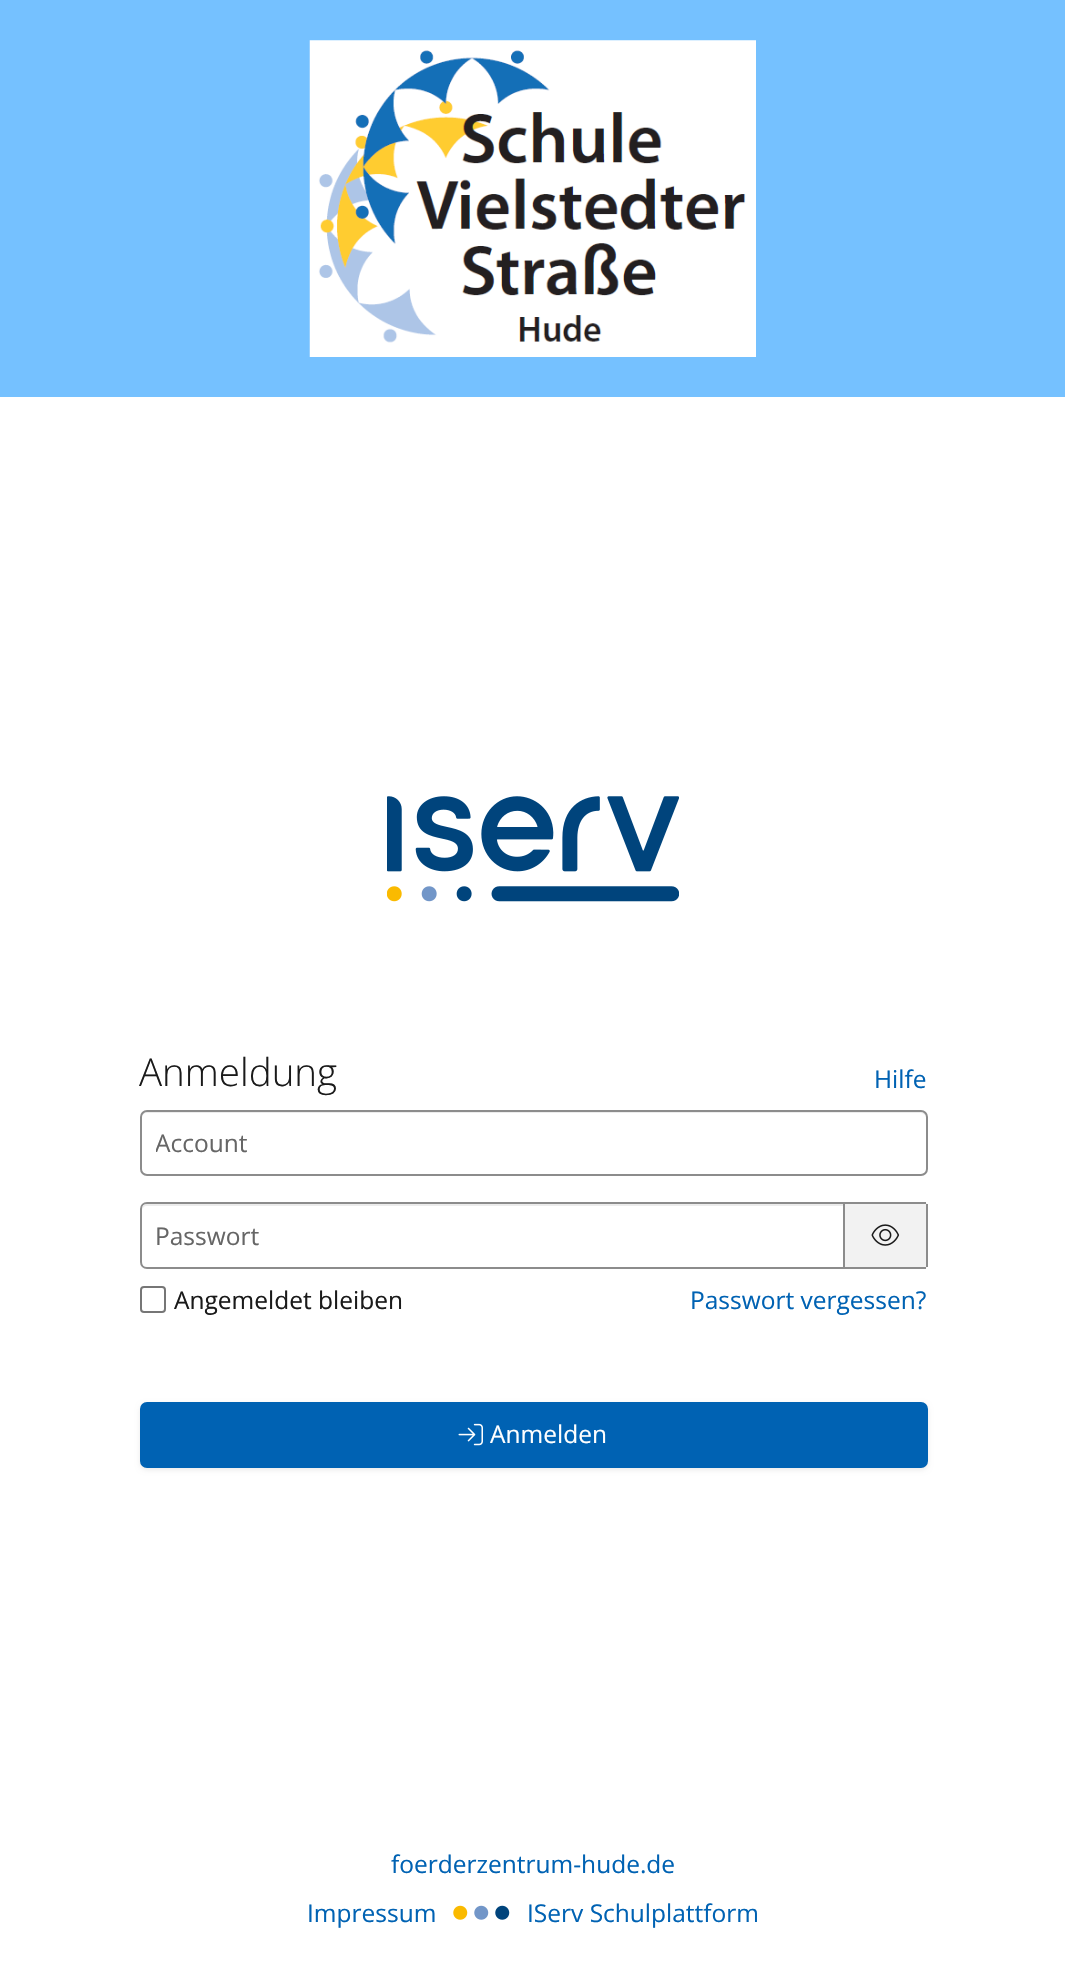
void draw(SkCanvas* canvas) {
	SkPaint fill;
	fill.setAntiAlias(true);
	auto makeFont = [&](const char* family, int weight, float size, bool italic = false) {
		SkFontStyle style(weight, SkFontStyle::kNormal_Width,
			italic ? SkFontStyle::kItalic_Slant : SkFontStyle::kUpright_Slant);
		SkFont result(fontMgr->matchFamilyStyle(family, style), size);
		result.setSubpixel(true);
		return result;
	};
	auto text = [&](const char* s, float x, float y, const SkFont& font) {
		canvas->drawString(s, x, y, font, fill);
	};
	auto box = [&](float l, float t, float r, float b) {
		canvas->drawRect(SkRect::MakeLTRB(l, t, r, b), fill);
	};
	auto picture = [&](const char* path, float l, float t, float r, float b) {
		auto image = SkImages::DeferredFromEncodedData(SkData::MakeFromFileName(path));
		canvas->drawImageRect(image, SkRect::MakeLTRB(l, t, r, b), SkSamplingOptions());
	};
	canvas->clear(0xFFFFFFFF);
	fill.setColor(0xFF75C1FF);
	box(0, 0, 1065, 397);
	picture("image0.png", 309, 40, 756, 357);
	picture("image1.png", 387, 796, 679, 902);
	fill.setColor(0xFFECECEC);
	canvas->drawPath(SkPathBuilder().moveTo(147, 1113).lineTo(920, 1113).cubicTo(923, 1113, 926, 1115, 926, 1118).cubicTo(926, 1115, 925, 1111, 921, 1111).lineTo(147, 1111).cubicTo(143, 1111, 142, 1115, 142, 1118).cubicTo(142, 1115, 144, 1113, 147, 1113).close().detach(), fill);
	fill.setStyle(SkPaint::kStroke_Style);
	fill.setStrokeWidth(2);
	fill.setColor(0xFF8C8C8C);
	canvas->drawRoundRect(SkRect::MakeLTRB(141, 1111, 927, 1175), 6, 6, fill);
	fill.setStyle(SkPaint::kFill_Style);
	fill.setColor(0xFFECECEC);
	canvas->drawPath(SkPathBuilder().moveTo(147, 1206).lineTo(844, 1206).lineTo(844, 1204).lineTo(147, 1204).cubicTo(143, 1204, 142, 1208, 142, 1211).cubicTo(142, 1208, 144, 1206, 147, 1206).close().detach(), fill);
	fill.setStyle(SkPaint::kStroke_Style);
	fill.setColor(0xFF8C8C8C);
	canvas->drawPath(SkPathBuilder().moveTo(147, 1203).lineTo(844, 1203).lineTo(844, 1268).lineTo(147, 1268).cubicTo(143.5f, 1268, 141, 1265.5f, 141, 1262).lineTo(141, 1209).cubicTo(141, 1205.5f, 143.5f, 1203, 147, 1203).close().detach(), fill);
	fill.setStyle(SkPaint::kFill_Style);
	fill.setColor(0xFFF2F2F2);
	canvas->drawPath(SkPathBuilder().moveTo(845, 1202).lineTo(924, 1202).cubicTo(926, 1202, 928, 1204, 928, 1206).lineTo(928, 1265).cubicTo(928, 1267, 926, 1269, 924, 1269).lineTo(845, 1269).close().detach(), fill);
	fill.setColor(0xFF8C8C8C);
	box(845, 1202, 926, 1204);
	box(926, 1204, 928, 1267);
	box(845, 1267, 926, 1269);
	picture("image2.png", 871, 1224, 900, 1246);
	fill.setStyle(SkPaint::kStroke_Style);
	fill.setColor(0xFF767676);
	canvas->drawRoundRect(SkRect::MakeLTRB(141, 1287, 165, 1312), 3, 3, fill);
	fill.setStyle(SkPaint::kFill_Style);
	fill.setColor(0x14000000);
	fill.setMaskFilter(SkMaskFilter::MakeBlur(kNormal_SkBlurStyle, 2.5f));
	canvas->drawRoundRect(SkRect::MakeLTRB(140, 1404, 928, 1470), 7, 7, fill);
	fill.setMaskFilter(nullptr);
	fill.setColor(0xFF0062B3);
	canvas->drawRoundRect(SkRect::MakeLTRB(141, 1403, 927, 1467), 6, 6, fill);
	fill.setStyle(SkPaint::kStroke_Style);
	canvas->drawRoundRect(SkRect::MakeLTRB(141, 1403, 927, 1467), 6, 6, fill);
	picture("image3.png", 458, 1423, 483, 1446);
	picture("image4.png", 453, 1905, 468, 1920);
	picture("image5.png", 474, 1905, 489, 1920);
	picture("image6.png", 495, 1905, 510, 1920);
	auto font1 = makeFont("Open Sans", 300, 38.5f);
	fill.setStyle(SkPaint::kFill_Style);
	fill.setColor(0xFF1A1A1A);
	text("Anmeldung", 139, 1086, font1);
	auto font2 = makeFont("Open Sans", 400, 24.5f);
	fill.setColor(0xFF0062B3);
	text("Hilfe", 874, 1088, font2);
	canvas->save();
	canvas->clipRect(SkRect::MakeLTRB(156, 1125, 912, 1159));
	fill.setColor(0xFF666666);
	text("Account", 155, 1152, font2);
	canvas->restore();
	text("Passwort", 155, 1245, font2);
	fill.setColor(0xFF1A1A1A);
	text("Angemeldet bleiben", 174, 1309, font2);
	fill.setColor(0xFF0062B3);
	text("Passwort vergessen?", 690, 1309, font2);
	fill.setColor(0xFFFFFFFF);
	text("Anmelden", 490, 1443, font2);
	fill.setColor(0xFF0062B3);
	text("foerderzentrum-hude.de", 391, 1873, font2);
	text("Impressum", 307, 1922, font2);
	text("IServ Schulplattform", 527, 1922, font2);
}
